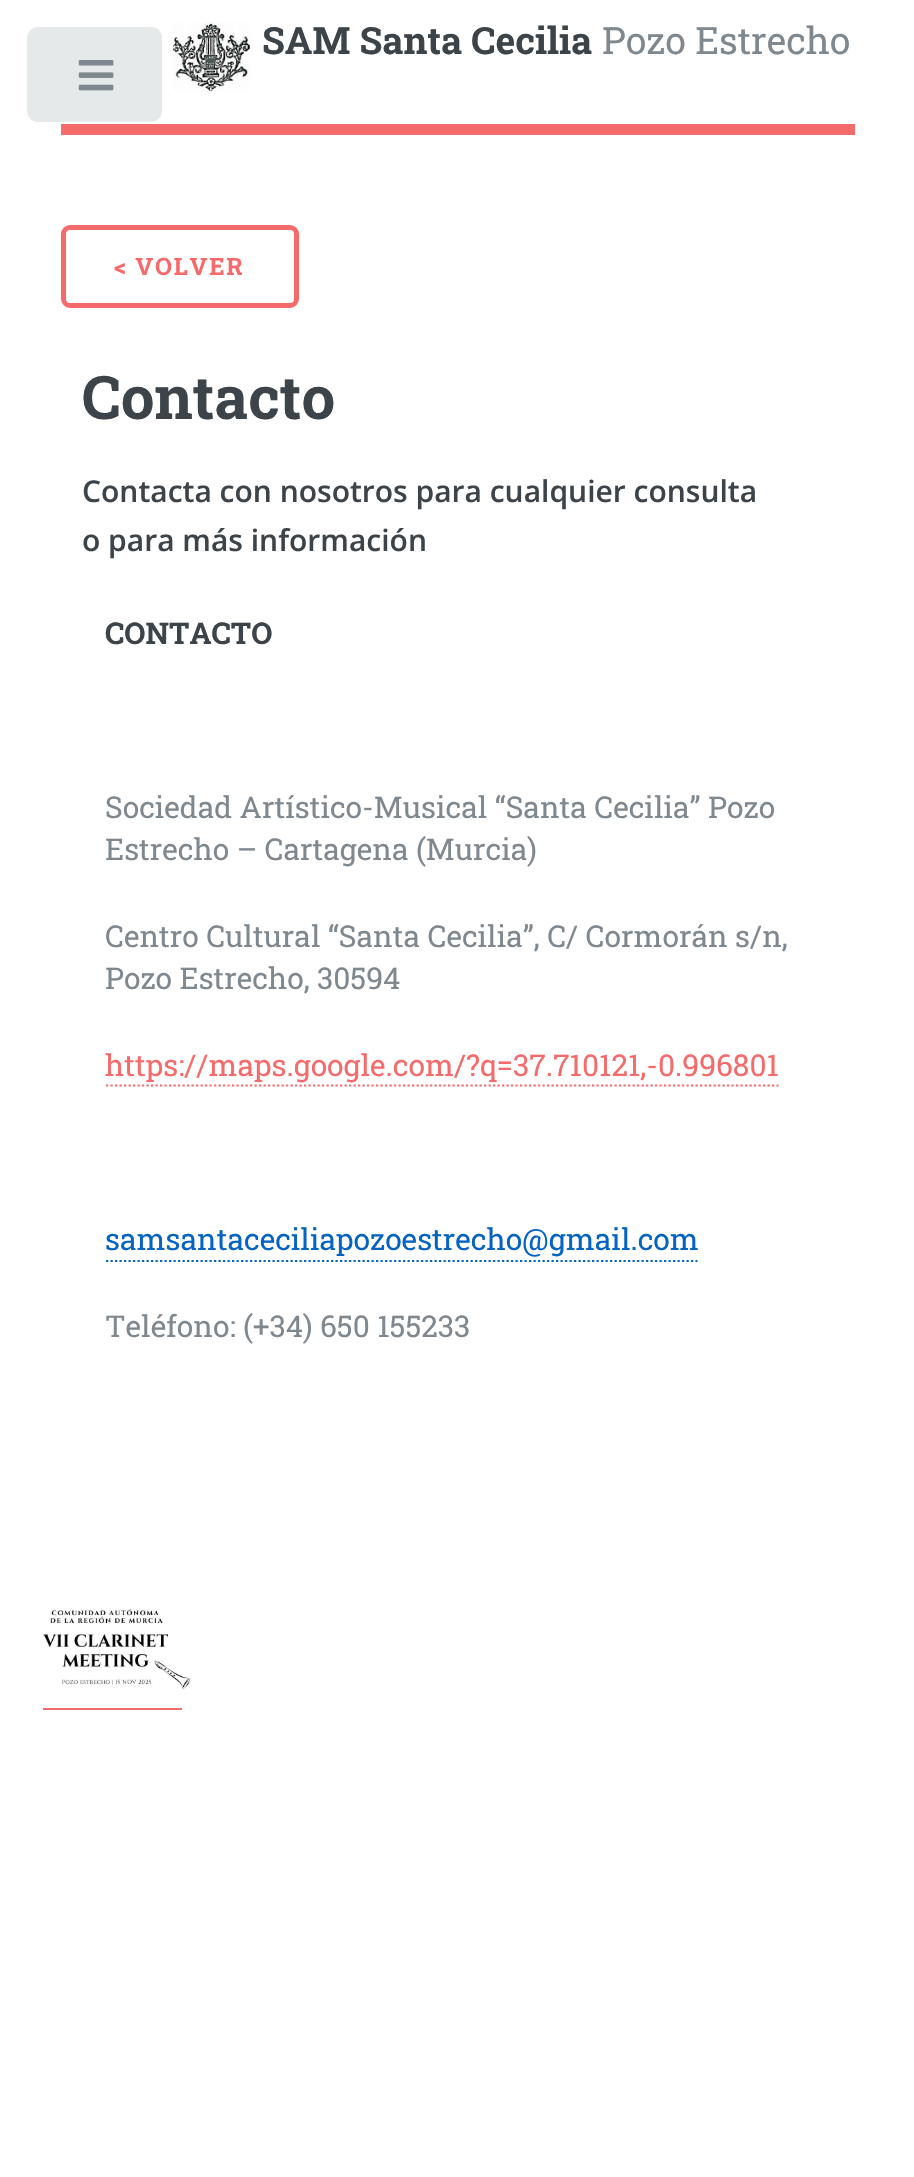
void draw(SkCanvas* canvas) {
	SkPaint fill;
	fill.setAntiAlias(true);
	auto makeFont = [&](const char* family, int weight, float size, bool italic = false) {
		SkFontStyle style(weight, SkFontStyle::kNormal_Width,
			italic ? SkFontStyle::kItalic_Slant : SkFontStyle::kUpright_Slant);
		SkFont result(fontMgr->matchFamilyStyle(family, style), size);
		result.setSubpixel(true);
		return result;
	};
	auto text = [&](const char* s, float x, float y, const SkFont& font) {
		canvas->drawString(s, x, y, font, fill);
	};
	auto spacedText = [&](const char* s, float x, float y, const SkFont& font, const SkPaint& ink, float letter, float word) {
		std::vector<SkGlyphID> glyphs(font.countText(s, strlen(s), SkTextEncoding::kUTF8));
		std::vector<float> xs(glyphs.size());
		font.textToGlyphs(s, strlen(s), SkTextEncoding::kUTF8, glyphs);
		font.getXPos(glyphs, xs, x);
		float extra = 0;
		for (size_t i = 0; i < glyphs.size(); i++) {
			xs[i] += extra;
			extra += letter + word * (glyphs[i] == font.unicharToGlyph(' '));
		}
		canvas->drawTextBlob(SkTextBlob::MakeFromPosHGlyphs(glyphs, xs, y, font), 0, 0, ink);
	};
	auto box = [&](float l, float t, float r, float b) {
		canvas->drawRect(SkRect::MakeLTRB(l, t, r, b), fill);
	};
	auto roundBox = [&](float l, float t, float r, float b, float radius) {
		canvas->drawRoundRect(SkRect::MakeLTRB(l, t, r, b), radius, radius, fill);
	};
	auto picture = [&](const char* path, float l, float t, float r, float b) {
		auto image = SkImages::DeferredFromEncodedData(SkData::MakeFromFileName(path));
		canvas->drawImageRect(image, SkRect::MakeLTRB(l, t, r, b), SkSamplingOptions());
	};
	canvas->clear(0xFFFFFFFF);
	fill.setColor(0xFFF56A6A);
	box(61, 124, 855, 135);
	picture("image0.png", 173, 22, 250, 92);
	fill.setStyle(SkPaint::kStroke_Style);
	fill.setStrokeWidth(5);
	canvas->drawRoundRect(SkRect::MakeLTRB(63.5f, 227.5f, 296.5f, 305.5f), 6.5f, 6.5f, fill);
	fill.setStrokeWidth(2.2f);
	fill.setPathEffect(SkDashPathEffect::Make({{2.25f, 2.25f}}, 0));
	canvas->drawPath(SkPathBuilder().moveTo(106, 1085.5f).lineTo(778.5f, 1085.5f).detach(), fill);
	fill.setPathEffect(nullptr);
	fill.setColor(0xFF0563C1);
	fill.setPathEffect(SkDashPathEffect::Make({{2.25f, 2.25f}}, 0));
	canvas->drawPath(SkPathBuilder().moveTo(106, 1261).lineTo(697.5f, 1261).detach(), fill);
	fill.setPathEffect(nullptr);
	picture("image1.png", 42, 1609, 191, 1690);
	fill.setStyle(SkPaint::kFill_Style);
	fill.setColor(0xFFF56A6A);
	box(43, 1708, 182, 1710);
	fill.setColor(0xFFE6E9E9);
	roundBox(27, 27, 162, 122, 11);
	picture("image2.png", 78, 60, 114, 91);
	auto font1 = makeFont("Roboto Slab", 700, 37.5f);
	fill.setColor(0xFF3D4449);
	text("SAM Santa Cecilia", 262, 54, font1);
	auto font2 = makeFont("Roboto Slab", 400, 37.5f);
	fill.setColor(0xFF7F888F);
	text("Pozo Estrecho", 602, 54, font2);
	auto font3 = makeFont("Roboto Slab", 700, 24);
	fill.setColor(0xFFF56A6A);
	spacedText("< VOLVER", 114, 275, font3, fill, 1.75f, 0);
	auto font4 = makeFont("Roboto Slab", 700, 60);
	fill.setColor(0xFF3D4449);
	text("Contacto", 82, 419, font4);
	auto font5 = makeFont("Open Sans", 600, 30);
	text("Contacta con nosotros para cualquier consulta", 82, 502, font5);
	text("o para más información", 82, 551, font5);
	auto font6 = makeFont("Roboto Slab", 700, 30);
	text("CONTACTO", 105, 644, font6);
	auto font7 = makeFont("Roboto Slab", 400, 30);
	fill.setColor(0xFF7F888F);
	text("Sociedad Artístico-Musical “Santa Cecilia” Pozo", 105, 818, font7);
	text("Estrecho – Cartagena (Murcia)", 105, 860, font7);
	text("Centro Cultural “Santa Cecilia”, C/ Cormorán s/n,", 105, 947, font7);
	text("Pozo Estrecho, 30594", 105, 989, font7);
	fill.setColor(0xFFF56A6A);
	text("https://maps.google.com/?q=37.710121,-0.996801", 105, 1076, font7);
	fill.setColor(0xFF0563C1);
	text("samsantaceciliapozoestrecho@gmail.com", 105, 1250, font7);
	fill.setColor(0xFF7F888F);
	text("Teléfono: (+34) 650 155233", 105, 1337, font7);
}
